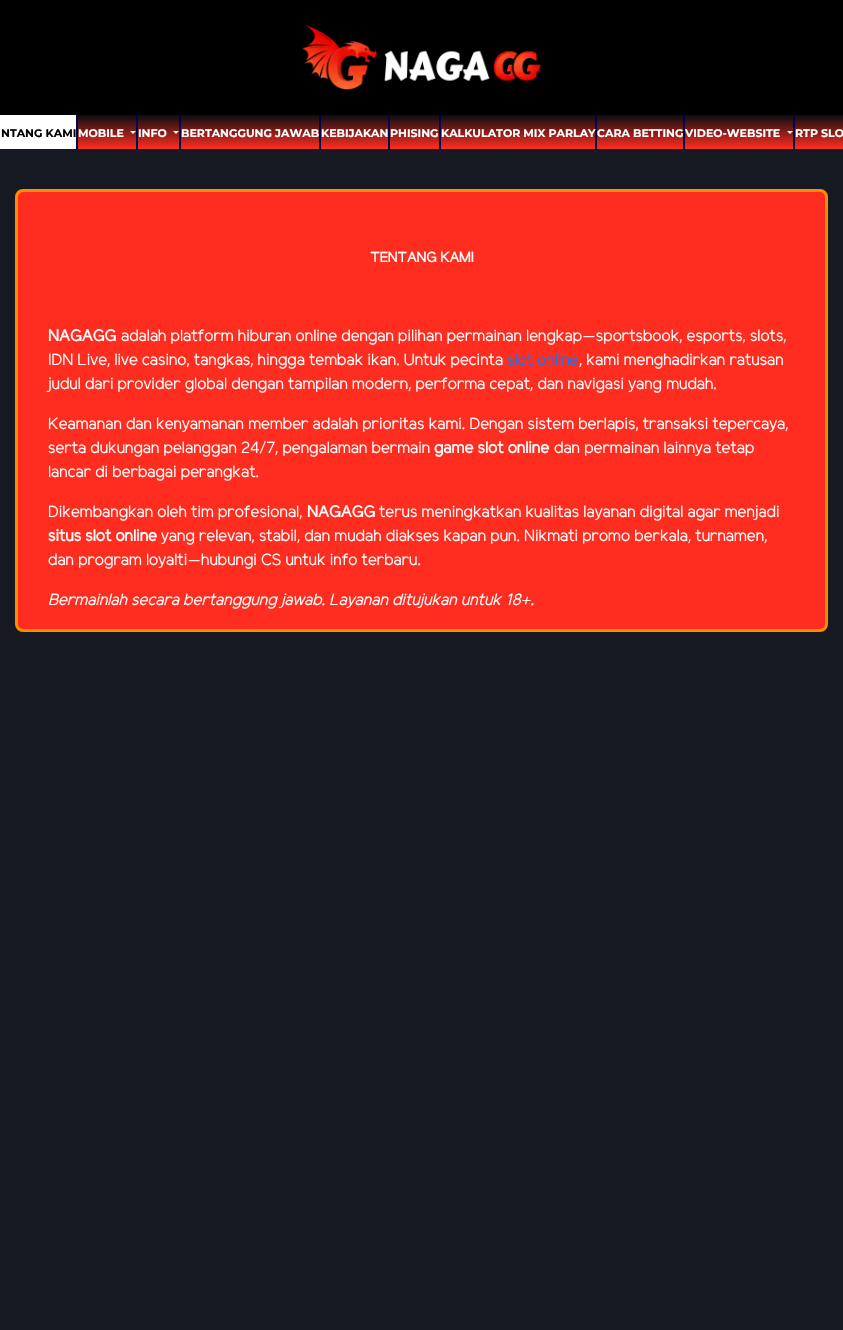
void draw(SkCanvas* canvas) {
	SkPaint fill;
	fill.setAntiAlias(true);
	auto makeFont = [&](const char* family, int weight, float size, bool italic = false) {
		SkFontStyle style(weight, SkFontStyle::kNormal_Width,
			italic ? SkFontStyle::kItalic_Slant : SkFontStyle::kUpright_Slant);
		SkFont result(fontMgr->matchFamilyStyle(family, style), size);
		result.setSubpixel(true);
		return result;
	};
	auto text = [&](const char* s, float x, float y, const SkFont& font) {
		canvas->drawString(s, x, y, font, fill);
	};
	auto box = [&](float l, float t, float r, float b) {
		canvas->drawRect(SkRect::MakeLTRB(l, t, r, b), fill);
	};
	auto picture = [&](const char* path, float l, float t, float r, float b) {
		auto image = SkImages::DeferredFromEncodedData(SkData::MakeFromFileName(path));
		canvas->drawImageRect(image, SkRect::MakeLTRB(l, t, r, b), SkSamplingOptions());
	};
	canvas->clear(0xFF161922);
	fill.setColor(0xFF000000);
	box(0, 0, 843, 115);
	picture("image0.png", 302, 25, 541, 90);
	{
		const SkColor colors[] = {0xFF0C0D12, 0xFFFF2D20};
		const float stops[] = {0, 1};
		const SkPoint ends[] = {{422, 115}, {422, 149}};
		fill.setShader(SkGradientShader::MakeLinear(ends, colors, stops, 2, SkTileMode::kClamp));
		fill.setAlpha(255);
	}
	box(78, 115, 843, 149);
	fill.setShader(nullptr);
	fill.setColor(0xFFFFFFFF);
	box(0, 115, 76, 149);
	fill.setColor(0xFF020046);
	box(76, 115, 78, 149);
	box(136, 115, 138, 149);
	fill.setColor(0xFFFFFFFF);
	canvas->drawPath(SkPathBuilder().moveTo(130, 131).lineTo(136, 131).lineTo(133, 134).close().detach(), fill);
	fill.setColor(0xFF020046);
	box(179, 115, 181, 149);
	fill.setColor(0xFFFFFFFF);
	canvas->drawPath(SkPathBuilder().moveTo(173, 131).lineTo(179, 131).lineTo(176, 134).close().detach(), fill);
	fill.setColor(0xFF020046);
	box(319, 115, 321, 149);
	box(388, 115, 390, 149);
	box(439, 115, 441, 149);
	box(595, 115, 597, 149);
	box(683, 115, 685, 149);
	box(793, 115, 795, 149);
	fill.setColor(0xFFFFFFFF);
	canvas->drawPath(SkPathBuilder().moveTo(787, 131).lineTo(793, 131).lineTo(790, 134).close().detach(), fill);
	fill.setColor(0xFFFF2D20);
	canvas->drawRoundRect(SkRect::MakeLTRB(16.5f, 190.5f, 826.5f, 630.5f), 6.5f, 6.5f, fill);
	fill.setStyle(SkPaint::kStroke_Style);
	fill.setStrokeWidth(3);
	fill.setColor(0xFFFF8C00);
	canvas->drawRoundRect(SkRect::MakeLTRB(16.5f, 190.5f, 826.5f, 630.5f), 6.5f, 6.5f, fill);
	auto font1 = makeFont("Montserrat", 700, 11);
	fill.setStyle(SkPaint::kFill_Style);
	fill.setColor(0xFF000000);
	text("NTANG KAMI", 1, 137, font1);
	fill.setColor(0xFFFFFFFF);
	text("MOBILE", 78, 137, font1);
	text("INFO", 138, 137, font1);
	text("BERTANGGUNG JAWAB", 181, 137, font1);
	text("KEBIJAKAN", 321, 137, font1);
	text("PHISING", 390, 137, font1);
	text("KALKULATOR MIX PARLAY", 441, 137, font1);
	text("CARA BETTING", 597, 137, font1);
	text("VIDEO-WEBSITE", 685, 137, font1);
	text("RTP SLO", 795, 137, font1);
	auto font2 = makeFont("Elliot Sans", 700, 14);
	text("TENTANG KAMI", 370, 262, font2);
	auto font3 = makeFont("Elliot Sans", 700, 16);
	text("NAGAGG", 48, 341, font3);
	auto font4 = makeFont("Elliot Sans", 400, 16);
	text("adalah platform hiburan online dengan pilihan permainan lengkap—sportsbook, esports, slots,", 121, 341, font4);
	text("IDN Live, live casino, tangkas, hingga tembak ikan. Untuk pecinta", 48, 365, font4);
	fill.setColor(0xFF007BFF);
	text("slot online", 507, 365, font4);
	fill.setColor(0xFFFFFFFF);
	text(", kami menghadirkan ratusan", 579, 365, font4);
	text("judul dari provider global dengan tampilan modern, performa cepat, dan navigasi yang mudah.", 48, 389, font4);
	text("Keamanan dan kenyamanan member adalah prioritas kami. Dengan sistem berlapis, transaksi tepercaya,", 48, 429, font4);
	text("serta dukungan pelanggan 24/7, pengalaman bermain", 48, 453, font4);
	text("game slot online", 434, 453, font3);
	text("dan permainan lainnya tetap", 554, 453, font4);
	text("lancar di berbagai perangkat.", 48, 477, font4);
	text("Dikembangkan oleh tim profesional,", 48, 517, font4);
	text("NAGAGG", 307, 517, font3);
	text("terus meningkatkan kualitas layanan digital agar menjadi", 379, 517, font4);
	text("situs slot online", 48, 541, font3);
	text("yang relevan, stabil, dan mudah diakses kapan pun. Nikmati promo berkala, turnamen,", 161, 541, font4);
	text("dan program loyalti—hubungi CS untuk info terbaru.", 48, 565, font4);
	auto font5 = makeFont("Elliot Sans", 400, 16, true);
	text("Bermainlah secara bertanggung jawab. Layanan ditujukan untuk 18+.", 48, 605, font5);
}
